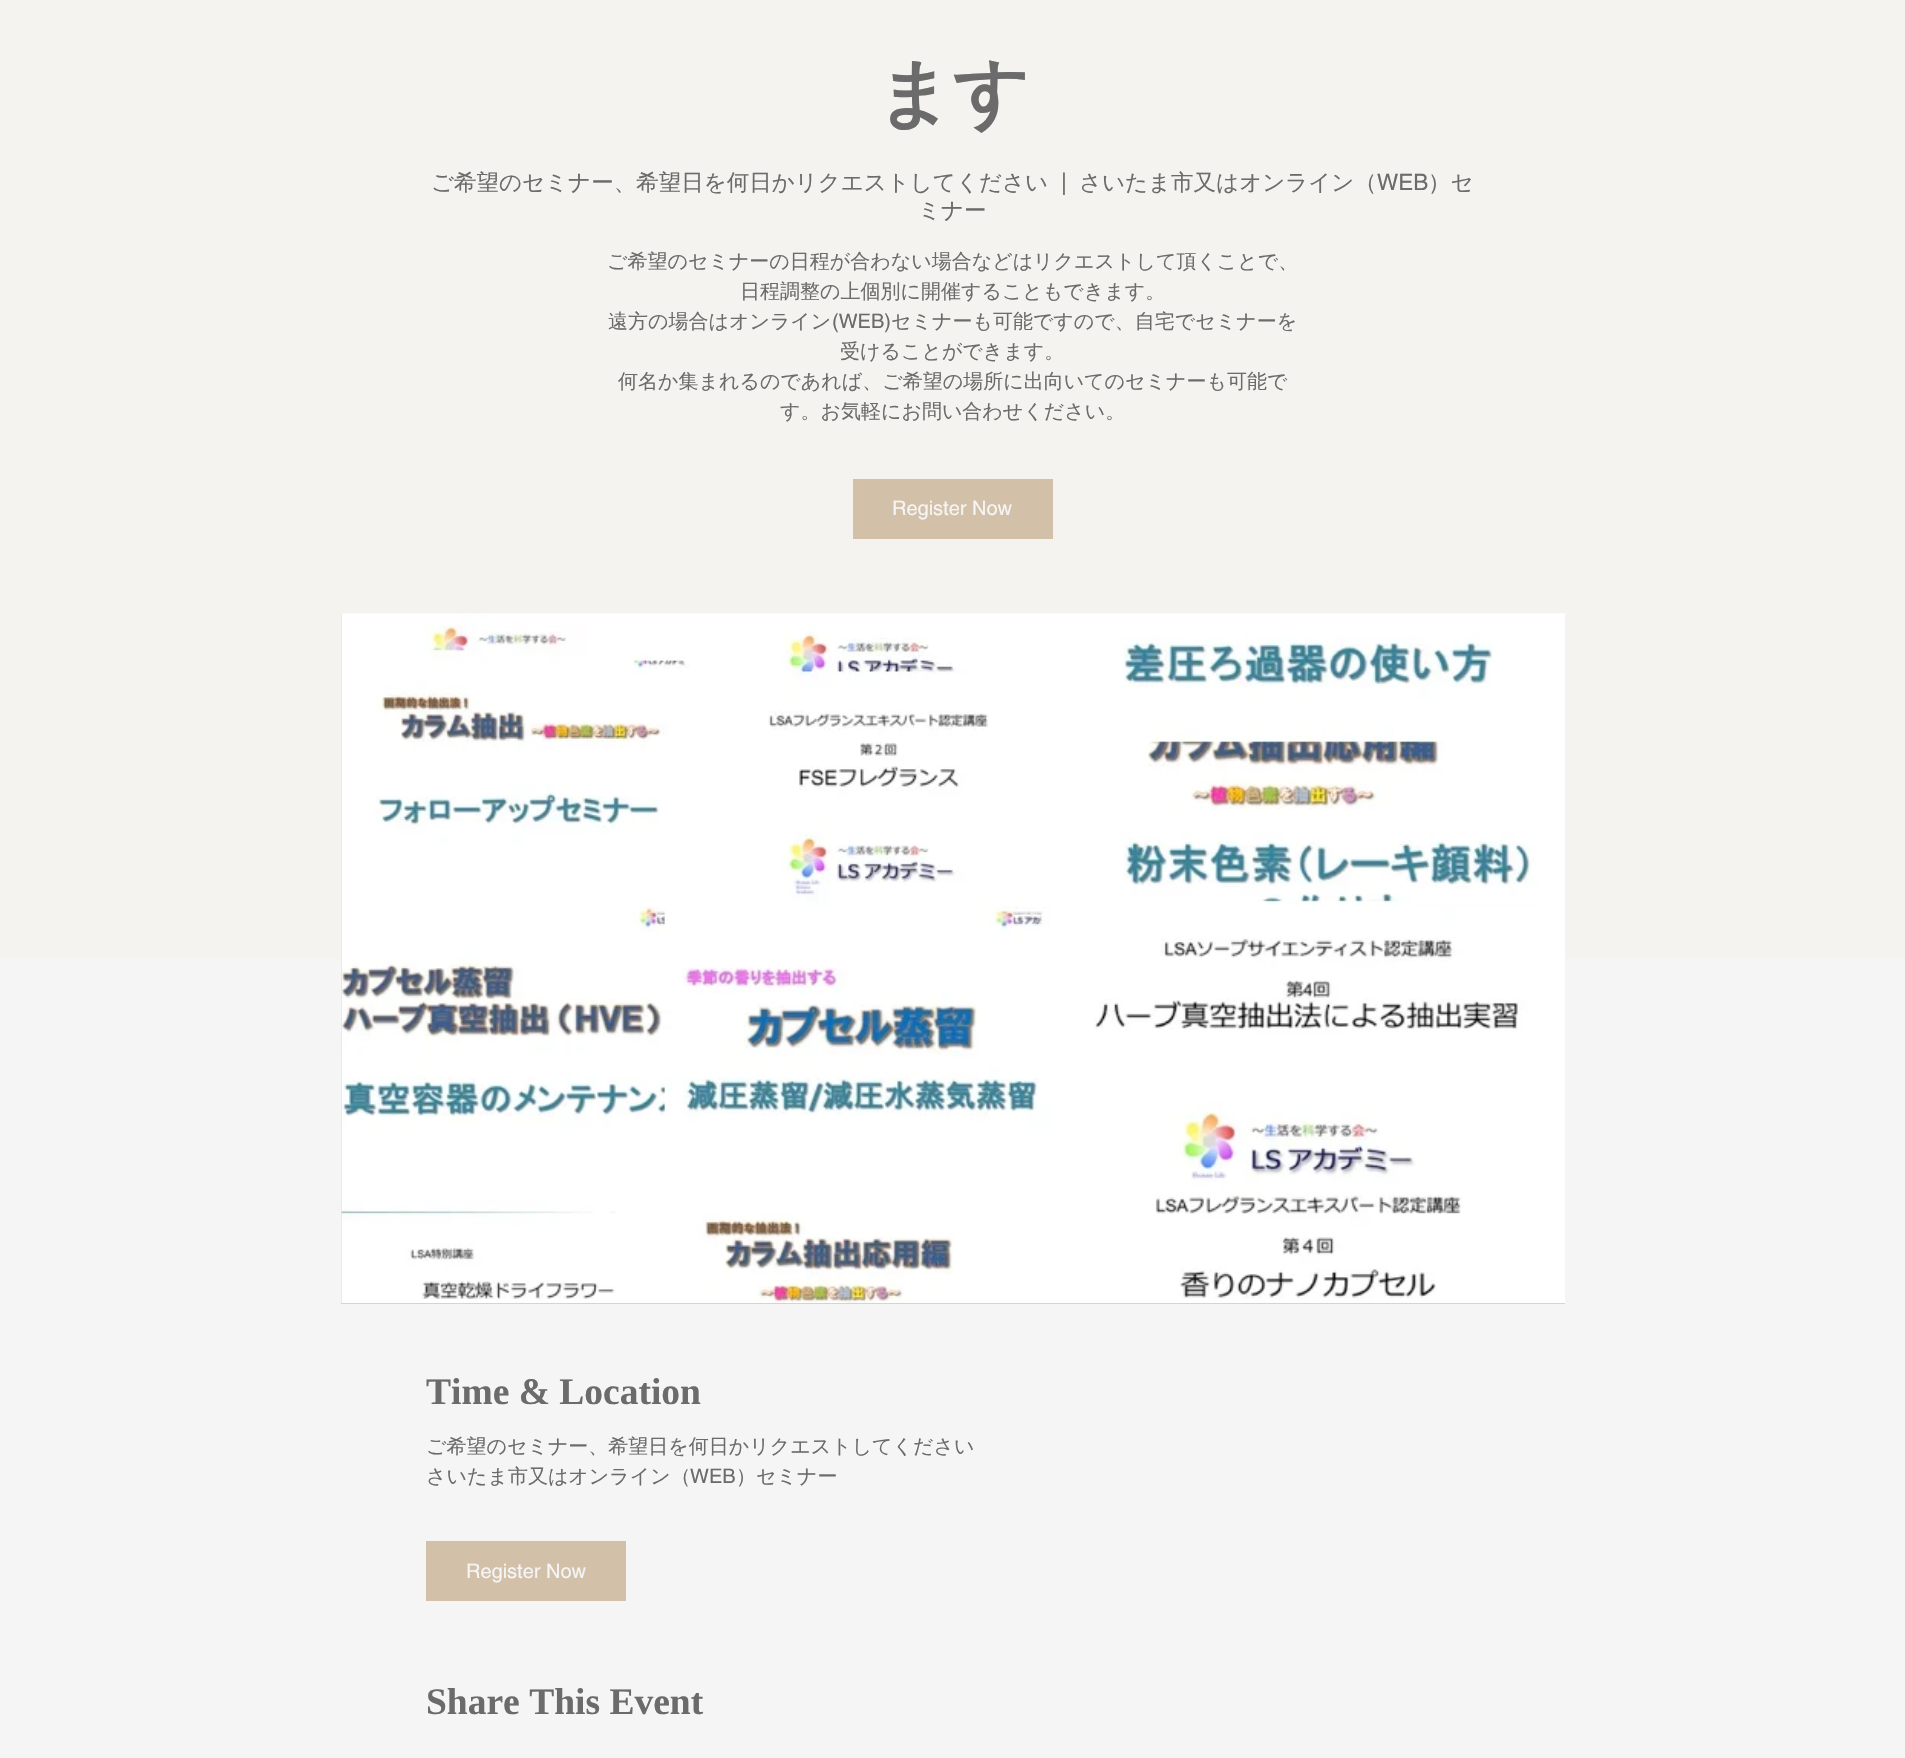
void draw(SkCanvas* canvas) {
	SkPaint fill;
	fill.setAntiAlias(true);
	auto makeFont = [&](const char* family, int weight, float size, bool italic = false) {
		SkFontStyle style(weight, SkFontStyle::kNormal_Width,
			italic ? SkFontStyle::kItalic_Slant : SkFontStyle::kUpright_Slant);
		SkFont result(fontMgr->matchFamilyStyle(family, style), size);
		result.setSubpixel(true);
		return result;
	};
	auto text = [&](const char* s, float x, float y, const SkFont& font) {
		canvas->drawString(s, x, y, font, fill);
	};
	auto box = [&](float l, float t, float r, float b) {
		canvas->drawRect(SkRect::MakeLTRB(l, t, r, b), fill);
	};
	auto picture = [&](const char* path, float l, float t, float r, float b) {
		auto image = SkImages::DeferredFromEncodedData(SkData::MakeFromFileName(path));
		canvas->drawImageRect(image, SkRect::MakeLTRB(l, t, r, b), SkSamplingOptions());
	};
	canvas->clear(0xFFF5F5F5);
	fill.setColor(0xFFF4F3F0);
	box(0, 0, 1905, 959);
	fill.setColor(0xFFD2C0A8);
	box(853, 479, 1053, 539);
	fill.setColor(0xFFDFCFBA);
	box(341, 614, 1565, 1304);
	picture("image0.png", 341, 613, 1565, 1304);
	fill.setColor(0xFFD2C0A8);
	box(426, 1541, 626, 1601);
	auto font1 = makeFont("WenQuanYi Zen Hei", 700, 75);
	fill.setColor(0xFF6B6B6B);
	text("ます", 876, 119, font1);
	auto font2 = makeFont("WenQuanYi Zen Hei", 500, 22.5f);
	text("ご希望のセミナー、希望日を何日かリクエストしてください", 431, 190, font2);
	auto font3 = makeFont("helvetica", 400, 22.5f);
	text("|", 1061, 190, font3);
	text("さいたま市又はオンライン（", 1079, 190, font2);
	text("WEB", 1377, 190, font3);
	text("）セ", 1428, 190, font2);
	text("ミナー", 918, 218, font2);
	auto font4 = makeFont("WenQuanYi Zen Hei", 500, 20);
	text("ご希望のセミナーの日程が合わない場合などはリクエストして頂くことで、", 607, 268, font4);
	text("日程調整の上個別に開催することもできます。", 740, 298, font4);
	text("遠方の場合はオンライン", 608, 328, font4);
	auto font5 = makeFont("helvetica", 400, 20);
	text("(WEB)", 832, 328, font5);
	text("セミナーも可能ですので、自宅でセミナーを", 891, 328, font4);
	text("受けることができます。", 840, 358, font4);
	text("何名か集まれるのであれば、ご希望の場所に出向いてのセミナーも可能で", 618, 388, font4);
	text("す。お気軽にお問い合わせください。", 780, 418, font4);
	fill.setColor(0xFFF5F5F5);
	text("Register Now", 892, 515, font5);
	auto font6 = makeFont("Liberation Serif", 700, 37.5f);
	fill.setColor(0xFF6B6B6B);
	text("Time & Location", 426, 1404, font6);
	text("ご希望のセミナー、希望日を何日かリクエストしてください", 426, 1453, font4);
	text("さいたま市又はオンライン（", 426, 1483, font4);
	text("WEB", 690, 1483, font5);
	text("）セミナー", 736, 1483, font4);
	fill.setColor(0xFFF5F5F5);
	text("Register Now", 466, 1578, font5);
	fill.setColor(0xFF6B6B6B);
	text("Share This Event", 426, 1714, font6);
}
